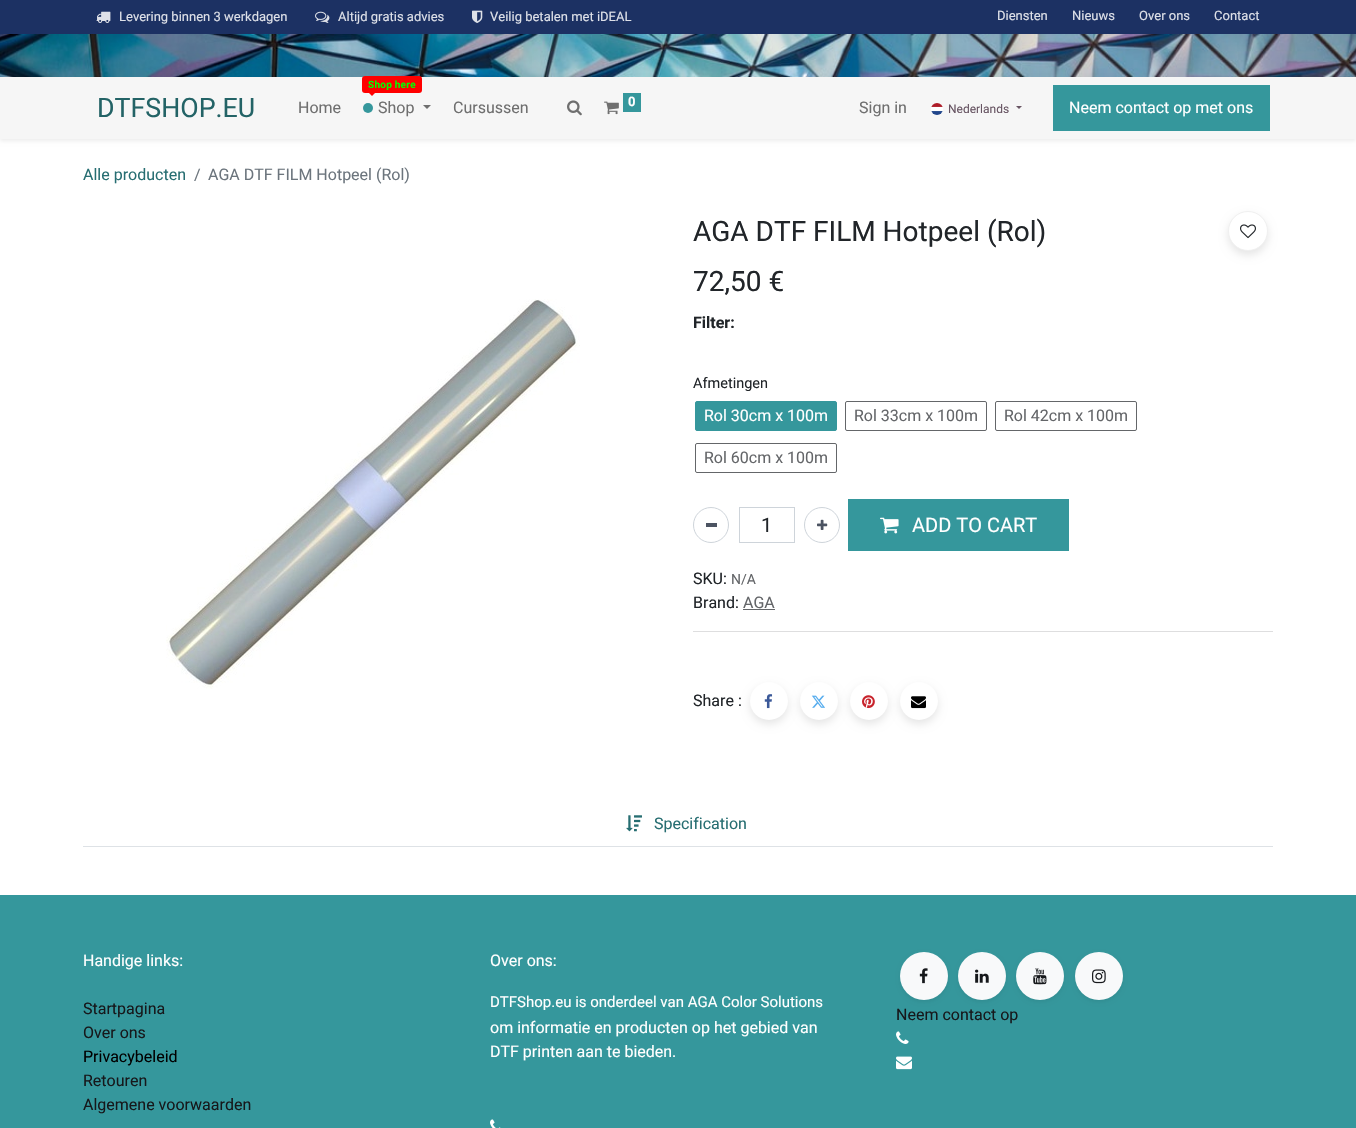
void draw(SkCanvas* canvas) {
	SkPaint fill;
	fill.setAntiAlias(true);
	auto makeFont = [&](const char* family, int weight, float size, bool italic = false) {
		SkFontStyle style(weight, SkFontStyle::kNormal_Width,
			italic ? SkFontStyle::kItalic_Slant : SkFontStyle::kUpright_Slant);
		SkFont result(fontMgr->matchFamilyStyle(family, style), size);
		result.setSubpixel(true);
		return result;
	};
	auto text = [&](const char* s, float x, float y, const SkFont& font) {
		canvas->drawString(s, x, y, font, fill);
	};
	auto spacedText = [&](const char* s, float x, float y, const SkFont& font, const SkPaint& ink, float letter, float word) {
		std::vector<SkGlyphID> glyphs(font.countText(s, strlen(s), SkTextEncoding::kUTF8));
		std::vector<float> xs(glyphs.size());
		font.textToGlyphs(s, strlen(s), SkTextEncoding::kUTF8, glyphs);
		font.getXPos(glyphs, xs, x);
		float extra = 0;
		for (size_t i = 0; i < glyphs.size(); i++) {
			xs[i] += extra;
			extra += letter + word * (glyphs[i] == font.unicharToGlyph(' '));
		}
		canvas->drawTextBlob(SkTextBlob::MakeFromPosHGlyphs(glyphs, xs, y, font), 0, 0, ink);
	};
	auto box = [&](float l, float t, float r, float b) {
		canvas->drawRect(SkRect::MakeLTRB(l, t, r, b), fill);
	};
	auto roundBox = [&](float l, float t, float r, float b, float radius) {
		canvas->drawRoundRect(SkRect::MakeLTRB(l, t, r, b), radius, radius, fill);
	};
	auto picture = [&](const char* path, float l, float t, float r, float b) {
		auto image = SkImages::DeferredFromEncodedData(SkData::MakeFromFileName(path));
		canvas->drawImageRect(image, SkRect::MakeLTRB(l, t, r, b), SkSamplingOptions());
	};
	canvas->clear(0xFFFFFFFF);
	fill.setColor(0xFF1C3163);
	box(0, 0, 1356, 34);
	picture("image0.png", 96, 11, 111, 23);
	picture("image1.png", 315, 11, 330, 23);
	picture("image2.png", 472, 10, 483, 23);
	picture("image3.png", 0, 34, 1356, 77);
	fill.setColor(0x12000000);
	fill.setMaskFilter(SkMaskFilter::MakeBlur(kNormal_SkBlurStyle, 2));
	canvas->drawRect(SkRect::MakeLTRB(0, 79, 1356, 141), fill);
	fill.setMaskFilter(nullptr);
	fill.setColor(0xFFF6F6F6);
	box(0, 77, 1356, 139);
	fill.setColor(0xFFFF0000);
	roundBox(362, 76, 422, 93, 3);
	canvas->drawPath(SkPathBuilder().moveTo(368, 92).lineTo(376, 92).lineTo(372, 96).close().detach(), fill);
	fill.setColor(0xFF35979C);
	canvas->drawCircle(368, 108, 5, fill);
	fill.setColor(0xFF6F6F6F);
	canvas->drawPath(SkPathBuilder().moveTo(423, 105).lineTo(431, 105).lineTo(427, 109).close().detach(), fill);
	picture("image4.png", 567, 100, 582, 116);
	picture("image5.png", 604, 101, 619, 115);
	fill.setColor(0xFF35979C);
	box(623, 93, 641, 112);
	picture("image6.png", 931, 103, 943, 115);
	fill.setColor(0xFF685563);
	canvas->drawPath(SkPathBuilder().moveTo(1016, 106).lineTo(1022, 106).lineTo(1019, 109).close().detach(), fill);
	fill.setColor(0xFF35979C);
	box(1053, 85, 1270, 131);
	picture("image7.png", 166, 299, 580, 689);
	fill.setColor(0x1A000000);
	fill.setMaskFilter(SkMaskFilter::MakeBlur(kNormal_SkBlurStyle, 4));
	canvas->drawRoundRect(SkRect::MakeLTRB(1228, 215, 1268, 255), 20, 20, fill);
	fill.setMaskFilter(nullptr);
	fill.setColor(0xFFFFFFFF);
	canvas->drawCircle(1248, 231, 19.5f, fill);
	fill.setStyle(SkPaint::kStroke_Style);
	fill.setStrokeWidth(1);
	fill.setColor(0xFFF0F0F0);
	canvas->drawCircle(1248, 231, 19.5f, fill);
	picture("image8.png", 1240, 224, 1256, 239);
	fill.setStyle(SkPaint::kFill_Style);
	fill.setColor(0xFF35979C);
	canvas->drawRoundRect(SkRect::MakeLTRB(695.5f, 401.5f, 836.5f, 430.5f), 1.5f, 1.5f, fill);
	fill.setStyle(SkPaint::kStroke_Style);
	canvas->drawRoundRect(SkRect::MakeLTRB(695.5f, 401.5f, 836.5f, 430.5f), 1.5f, 1.5f, fill);
	fill.setColor(0xFF646669);
	canvas->drawRoundRect(SkRect::MakeLTRB(845.5f, 401.5f, 986.5f, 430.5f), 1.5f, 1.5f, fill);
	canvas->drawRoundRect(SkRect::MakeLTRB(995.5f, 401.5f, 1136.5f, 430.5f), 1.5f, 1.5f, fill);
	canvas->drawRoundRect(SkRect::MakeLTRB(695.5f, 443.5f, 836.5f, 472.5f), 1.5f, 1.5f, fill);
	fill.setColor(0xFFCED4DA);
	canvas->drawCircle(711, 525, 17.5f, fill);
	fill.setStyle(SkPaint::kFill_Style);
	fill.setColor(0xFF4C5462);
	box(706, 523, 717, 527);
	fill.setStyle(SkPaint::kStroke_Style);
	fill.setColor(0xFFCED4DA);
	canvas->drawRect(SkRect::MakeLTRB(739.5f, 507.5f, 794.5f, 542.5f), fill);
	canvas->drawCircle(822, 525, 17.5f, fill);
	picture("image9.png", 817, 519, 828, 530);
	fill.setStyle(SkPaint::kFill_Style);
	fill.setColor(0xFF35979C);
	box(848, 499, 1069, 551);
	picture("image10.png", 880, 517, 899, 534);
	fill.setColor(0xFF646669);
	box(743, 609, 775, 610);
	fill.setColor(0xFFDEDEDF);
	box(693, 631, 1273, 632);
	fill.setColor(0x1A000000);
	fill.setMaskFilter(SkMaskFilter::MakeBlur(kNormal_SkBlurStyle, 4));
	canvas->drawRoundRect(SkRect::MakeLTRB(750, 686, 788, 724), 19, 19, fill);
	fill.setMaskFilter(nullptr);
	fill.setColor(0xFFFFFFFF);
	canvas->drawCircle(769, 701, 19, fill);
	picture("image11.png", 764, 694, 773, 709);
	fill.setColor(0x1A000000);
	fill.setMaskFilter(SkMaskFilter::MakeBlur(kNormal_SkBlurStyle, 4));
	canvas->drawRoundRect(SkRect::MakeLTRB(800, 686, 838, 724), 19, 19, fill);
	fill.setMaskFilter(nullptr);
	fill.setColor(0xFFFFFFFF);
	canvas->drawCircle(819, 701, 19, fill);
	picture("image12.png", 811, 695, 825, 708);
	fill.setColor(0x1A000000);
	fill.setMaskFilter(SkMaskFilter::MakeBlur(kNormal_SkBlurStyle, 4));
	canvas->drawRoundRect(SkRect::MakeLTRB(850, 686, 888, 724), 19, 19, fill);
	fill.setMaskFilter(nullptr);
	fill.setColor(0xFFFFFFFF);
	canvas->drawCircle(869, 701, 19, fill);
	picture("image13.png", 862, 695, 875, 709);
	fill.setColor(0x1A000000);
	fill.setMaskFilter(SkMaskFilter::MakeBlur(kNormal_SkBlurStyle, 4));
	canvas->drawRoundRect(SkRect::MakeLTRB(900, 686, 938, 724), 19, 19, fill);
	fill.setMaskFilter(nullptr);
	fill.setColor(0xFFFFFFFF);
	canvas->drawCircle(919, 701, 19, fill);
	picture("image14.png", 911, 696, 926, 709);
	fill.setColor(0xFFDEE2E6);
	box(83, 846, 1273, 847);
	picture("image15.png", 626, 815, 642, 832);
	fill.setColor(0xFF35979C);
	box(0, 895, 1356, 1128);
	picture("image16.png", 490, 1119, 501, 1128);
	fill.setColor(0x12000000);
	fill.setMaskFilter(SkMaskFilter::MakeBlur(kNormal_SkBlurStyle, 2));
	canvas->drawRoundRect(SkRect::MakeLTRB(900, 954, 948, 1002), 24, 24, fill);
	fill.setMaskFilter(nullptr);
	fill.setColor(0xFFF8F9FA);
	canvas->drawCircle(924, 976, 24, fill);
	picture("image17.png", 919, 968, 928, 984);
	fill.setColor(0x12000000);
	fill.setMaskFilter(SkMaskFilter::MakeBlur(kNormal_SkBlurStyle, 2));
	canvas->drawRoundRect(SkRect::MakeLTRB(958, 954, 1006, 1002), 24, 24, fill);
	fill.setMaskFilter(nullptr);
	fill.setColor(0xFFF8F9FA);
	canvas->drawCircle(982, 976, 24, fill);
	picture("image18.png", 975, 969, 989, 983);
	fill.setColor(0x12000000);
	fill.setMaskFilter(SkMaskFilter::MakeBlur(kNormal_SkBlurStyle, 2));
	canvas->drawRoundRect(SkRect::MakeLTRB(1016, 954, 1064, 1002), 24, 24, fill);
	fill.setMaskFilter(nullptr);
	fill.setColor(0xFFF8F9FA);
	canvas->drawCircle(1040, 976, 24, fill);
	picture("image19.png", 1033, 968, 1047, 985);
	fill.setColor(0x12000000);
	fill.setMaskFilter(SkMaskFilter::MakeBlur(kNormal_SkBlurStyle, 2));
	canvas->drawRoundRect(SkRect::MakeLTRB(1075, 954, 1123, 1002), 24, 24, fill);
	fill.setMaskFilter(nullptr);
	fill.setColor(0xFFF8F9FA);
	canvas->drawCircle(1099, 976, 24, fill);
	picture("image20.png", 1092, 969, 1106, 984);
	picture("image21.png", 896, 1031, 909, 1044);
	picture("image22.png", 896, 1056, 912, 1070);
	auto font1 = makeFont("Roboto", 400, 13);
	fill.setColor(0xFFDDE0E8);
	text("Levering binnen 3 werkdagen", 119, 21, font1);
	text("Altijd gratis advies", 338, 21, font1);
	text("Veilig betalen met iDEAL", 490, 21, font1);
	text("Diensten", 997, 20, font1);
	text("Nieuws", 1072, 20, font1);
	text("Over ons", 1139, 20, font1);
	text("Contact", 1214, 20, font1);
	auto font2 = makeFont("Roboto", 400, 26.75f);
	fill.setColor(0xFF236366);
	text("DTFSHOP.EU", 97, 117, font2);
	auto font3 = makeFont("Roboto", 400, 16);
	fill.setColor(0xFF6F6F6F);
	text("Home", 298, 113, font3);
	auto font4 = makeFont("Roboto", 700, 10);
	fill.setColor(0xFF00FF00);
	spacedText("Shop here", 368, 88, font4, fill, 0.25f, 0);
	fill.setColor(0xFF6F6F6F);
	text("Shop", 378, 113, font3);
	text("Cursussen", 453, 113, font3);
	auto font5 = makeFont("Roboto", 700, 13);
	fill.setColor(0xFFFFFFFF);
	text("0", 628, 106, font5);
	fill.setColor(0xFF6F6F6F);
	text("Sign in", 859, 113, font3);
	auto font6 = makeFont("Roboto", 400, 12);
	fill.setColor(0xFF685563);
	text("Nederlands", 948, 113, font6);
	fill.setColor(0xFFFFFFFF);
	text("Neem contact op met ons", 1069, 113, font3);
	fill.setColor(0xFF276E72);
	text("Alle producten", 83, 180, font3);
	fill.setColor(0xFF6C757D);
	text("/", 194, 180, font3);
	text("AGA DTF FILM Hotpeel (Rol)", 208, 180, font3);
	auto font7 = makeFont("Roboto", 400, 28);
	fill.setColor(0xFF212529);
	text("AGA DTF FILM Hotpeel (Rol)", 693, 241, font7);
	text("72,50 €", 693, 291, font7);
	auto font8 = makeFont("Roboto", 700, 16);
	text("Filter:", 693, 328, font8);
	auto font9 = makeFont("Roboto", 400, 14.5f);
	text("Afmetingen", 693, 388, font9);
	fill.setColor(0xFFFFFFFF);
	text("Rol 30cm x 100m", 704, 421, font3);
	fill.setColor(0xFF646669);
	text("Rol 33cm x 100m", 854, 421, font3);
	text("Rol 42cm x 100m", 1004, 421, font3);
	text("Rol 60cm x 100m", 704, 463, font3);
	auto font10 = makeFont("Roboto", 400, 20);
	fill.setColor(0xFF212529);
	text("1", 761, 532, font10);
	fill.setColor(0xFFFFFFFF);
	text("ADD TO CART", 912, 532, font10);
	fill.setColor(0xFF212529);
	text("SKU:", 693, 584, font3);
	auto font11 = makeFont("Roboto", 400, 14);
	fill.setColor(0xFF646669);
	text("N/A", 731, 584, font11);
	fill.setColor(0xFF212529);
	text("Brand:", 693, 608, font3);
	fill.setColor(0xFF646669);
	text("AGA", 743, 608, font3);
	fill.setColor(0xFF212529);
	text("Share :", 693, 706, font3);
	fill.setColor(0xFF276E72);
	text("Specification", 654, 829, font3);
	fill.setColor(0xFFFFFFFF);
	text("Handige links:", 83, 966, font3);
	fill.setColor(0xFF16181B);
	text("Startpagina", 83, 1014, font3);
	text("Over ons", 83, 1038, font3);
	fill.setColor(0xFF000000);
	text("Privacybeleid", 83, 1062, font3);
	fill.setColor(0xFF16181B);
	text("Retouren", 83, 1086, font3);
	text("Algemene voorwaarden", 83, 1110, font3);
	fill.setColor(0xFFFFFFFF);
	text("Over ons:", 490, 966, font3);
	auto font12 = makeFont("Roboto", 400, 15);
	text("DTFShop.eu is onderdeel van AGA Color Solutions", 490, 1007, font12);
	text("om informatie en producten op het gebied van", 490, 1033, font3);
	text("DTF printen aan te bieden.", 490, 1057, font3);
	fill.setColor(0xFF16181B);
	text("Neem contact op", 896, 1020, font3);
}
